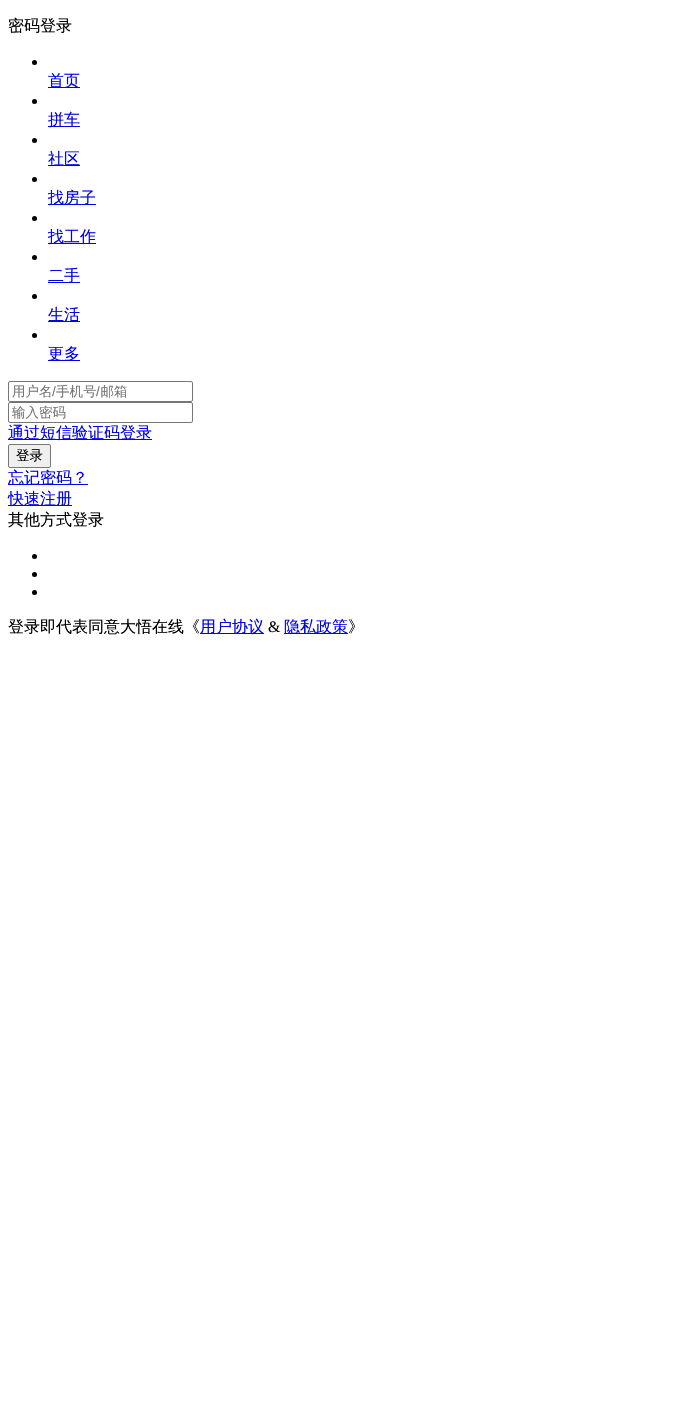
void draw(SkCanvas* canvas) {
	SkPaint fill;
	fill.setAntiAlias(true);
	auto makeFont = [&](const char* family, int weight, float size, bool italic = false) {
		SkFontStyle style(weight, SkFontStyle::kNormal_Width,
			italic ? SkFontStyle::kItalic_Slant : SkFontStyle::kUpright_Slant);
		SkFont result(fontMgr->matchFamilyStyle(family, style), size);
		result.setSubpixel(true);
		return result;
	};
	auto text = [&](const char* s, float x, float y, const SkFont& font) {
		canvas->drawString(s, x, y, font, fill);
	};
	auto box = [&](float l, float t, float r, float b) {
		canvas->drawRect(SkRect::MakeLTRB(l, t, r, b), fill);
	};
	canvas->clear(0xFFFFFFFF);
	fill.setColor(0xFF000000);
	canvas->drawCircle(34.5f, 62.5f, 2.5f, fill);
	fill.setColor(0xFF0000EE);
	box(48, 87, 80, 88);
	fill.setColor(0xFF000000);
	canvas->drawCircle(34.5f, 101.5f, 2.5f, fill);
	fill.setColor(0xFF0000EE);
	box(48, 126, 80, 127);
	fill.setColor(0xFF000000);
	canvas->drawCircle(34.5f, 140.5f, 2.5f, fill);
	fill.setColor(0xFF0000EE);
	box(48, 165, 80, 166);
	fill.setColor(0xFF000000);
	canvas->drawCircle(34.5f, 179.5f, 2.5f, fill);
	fill.setColor(0xFF0000EE);
	box(48, 204, 96, 205);
	fill.setColor(0xFF000000);
	canvas->drawCircle(34.5f, 218.5f, 2.5f, fill);
	fill.setColor(0xFF0000EE);
	box(48, 243, 96, 244);
	fill.setColor(0xFF000000);
	canvas->drawCircle(34.5f, 257.5f, 2.5f, fill);
	fill.setColor(0xFF0000EE);
	box(48, 282, 80, 283);
	fill.setColor(0xFF000000);
	canvas->drawCircle(34.5f, 296.5f, 2.5f, fill);
	fill.setColor(0xFF0000EE);
	box(48, 321, 80, 322);
	fill.setColor(0xFF000000);
	canvas->drawCircle(34.5f, 335.5f, 2.5f, fill);
	fill.setColor(0xFF0000EE);
	box(48, 360, 80, 361);
	fill.setStyle(SkPaint::kStroke_Style);
	fill.setStrokeWidth(1);
	fill.setColor(0xFF767676);
	canvas->drawRoundRect(SkRect::MakeLTRB(8.5f, 381.5f, 192.5f, 401.5f), 1.5f, 1.5f, fill);
	canvas->drawRoundRect(SkRect::MakeLTRB(8.5f, 402.5f, 192.5f, 422.5f), 1.5f, 1.5f, fill);
	fill.setStyle(SkPaint::kFill_Style);
	fill.setColor(0xFF0000EE);
	box(8, 439, 152, 440);
	fill.setColor(0xFFEFEFEF);
	canvas->drawRoundRect(SkRect::MakeLTRB(8.5f, 444.5f, 50.5f, 467.5f), 1.5f, 1.5f, fill);
	fill.setStyle(SkPaint::kStroke_Style);
	fill.setColor(0xFF767676);
	canvas->drawRoundRect(SkRect::MakeLTRB(8.5f, 444.5f, 50.5f, 467.5f), 1.5f, 1.5f, fill);
	fill.setStyle(SkPaint::kFill_Style);
	fill.setColor(0xFF0000EE);
	box(8, 484, 88, 485);
	box(8, 505, 72, 506);
	fill.setColor(0xFF000000);
	canvas->drawCircle(34.5f, 556.5f, 2.5f, fill);
	canvas->drawCircle(34.5f, 574.5f, 2.5f, fill);
	canvas->drawCircle(34.5f, 592.5f, 2.5f, fill);
	fill.setColor(0xFF0000EE);
	box(200, 633, 264, 634);
	box(284, 633, 348, 634);
	auto font1 = makeFont("WenQuanYi Zen Hei", 500, 16);
	fill.setColor(0xFF000000);
	text("密码登录", 8, 31, font1);
	fill.setColor(0xFF0000EE);
	text("首页", 48, 86, font1);
	text("拼车", 48, 125, font1);
	text("社区", 48, 164, font1);
	text("找房子", 48, 203, font1);
	text("找工作", 48, 242, font1);
	text("二手", 48, 281, font1);
	text("生活", 48, 320, font1);
	text("更多", 48, 359, font1);
	auto font2 = makeFont("WenQuanYi Zen Hei", 500, 13.5f);
	fill.setColor(0xFF757575);
	text("用户名", 12, 396, font2);
	auto font3 = makeFont("Liberation Sans", 400, 13.5f);
	text("/", 52, 396, font3);
	text("手机号 邮箱", 56, 396, font2);
	text("/", 96, 396, font3);
	text("输入密码", 12, 417, font2);
	fill.setColor(0xFF0000EE);
	text("通过短信验证码登录", 8, 438, font1);
	fill.setColor(0xFF000000);
	text("登录", 16, 460, font2);
	fill.setColor(0xFF0000EE);
	text("忘记密码？", 8, 483, font1);
	text("快速注册", 8, 504, font1);
	fill.setColor(0xFF000000);
	text("其他方式登录", 8, 525, font1);
	text("登录即代表同意大悟在线《", 8, 632, font1);
	fill.setColor(0xFF0000EE);
	text("用户协议", 200, 632, font1);
	auto font4 = makeFont("Liberation Serif", 400, 16);
	fill.setColor(0xFF000000);
	text("&", 268, 632, font4);
	fill.setColor(0xFF0000EE);
	text("隐私政策", 284, 632, font1);
	fill.setColor(0xFF000000);
	text("》", 348, 632, font1);
}
